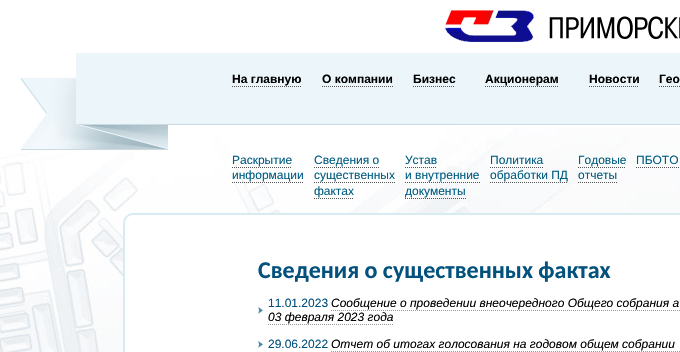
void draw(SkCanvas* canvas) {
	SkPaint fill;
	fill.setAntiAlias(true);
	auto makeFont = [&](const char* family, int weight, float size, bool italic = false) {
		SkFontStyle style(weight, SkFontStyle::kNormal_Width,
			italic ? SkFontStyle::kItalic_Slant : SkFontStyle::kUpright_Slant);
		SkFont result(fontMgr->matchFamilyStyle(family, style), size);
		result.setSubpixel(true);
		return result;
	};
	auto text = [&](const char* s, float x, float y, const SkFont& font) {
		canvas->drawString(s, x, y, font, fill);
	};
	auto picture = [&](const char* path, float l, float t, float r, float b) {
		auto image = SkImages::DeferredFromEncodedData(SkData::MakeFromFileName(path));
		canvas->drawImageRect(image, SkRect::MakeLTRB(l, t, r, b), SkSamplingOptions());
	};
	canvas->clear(0xFFFFFFFF);
	picture("image0.png", 0, 127, 680, 352);
	picture("image1.png", 445, 10, 680, 42);
	picture("image2.png", 20, 53, 680, 150);
	fill.setStyle(SkPaint::kStroke_Style);
	fill.setStrokeWidth(1);
	fill.setColor(0xFF555555);
	fill.setPathEffect(SkDashPathEffect::Make({{1, 1}}, 0));
	canvas->drawPath(SkPathBuilder().moveTo(232, 86.5f).lineTo(302, 86.5f).detach(), fill);
	fill.setPathEffect(nullptr);
	fill.setPathEffect(SkDashPathEffect::Make({{1, 1}}, 0));
	canvas->drawPath(SkPathBuilder().moveTo(485, 86.5f).lineTo(559, 86.5f).detach(), fill);
	fill.setPathEffect(nullptr);
	fill.setPathEffect(SkDashPathEffect::Make({{1, 1}}, 0));
	canvas->drawPath(SkPathBuilder().moveTo(232, 167.5f).lineTo(292, 167.5f).detach(), fill);
	fill.setPathEffect(nullptr);
	fill.setPathEffect(SkDashPathEffect::Make({{1, 1}}, 0));
	canvas->drawPath(SkPathBuilder().moveTo(232, 182.5f).lineTo(304, 182.5f).detach(), fill);
	fill.setPathEffect(nullptr);
	fill.setPathEffect(SkDashPathEffect::Make({{1, 1}}, 0));
	canvas->drawPath(SkPathBuilder().moveTo(314, 167.5f).lineTo(379, 167.5f).detach(), fill);
	fill.setPathEffect(nullptr);
	fill.setPathEffect(SkDashPathEffect::Make({{1, 1}}, 0));
	canvas->drawPath(SkPathBuilder().moveTo(314, 182.5f).lineTo(395, 182.5f).detach(), fill);
	fill.setPathEffect(nullptr);
	fill.setPathEffect(SkDashPathEffect::Make({{1, 1}}, 0));
	canvas->drawPath(SkPathBuilder().moveTo(314, 198.5f).lineTo(354, 198.5f).detach(), fill);
	fill.setPathEffect(nullptr);
	fill.setPathEffect(SkDashPathEffect::Make({{1, 1}}, 0));
	canvas->drawPath(SkPathBuilder().moveTo(405, 167.5f).lineTo(437, 167.5f).detach(), fill);
	fill.setPathEffect(nullptr);
	fill.setPathEffect(SkDashPathEffect::Make({{1, 1}}, 0));
	canvas->drawPath(SkPathBuilder().moveTo(405, 182.5f).lineTo(480, 182.5f).detach(), fill);
	fill.setPathEffect(nullptr);
	fill.setPathEffect(SkDashPathEffect::Make({{1, 1}}, 0));
	canvas->drawPath(SkPathBuilder().moveTo(405, 198.5f).lineTo(466, 198.5f).detach(), fill);
	fill.setPathEffect(nullptr);
	fill.setPathEffect(SkDashPathEffect::Make({{1, 1}}, 0));
	canvas->drawPath(SkPathBuilder().moveTo(490, 167.5f).lineTo(543, 167.5f).detach(), fill);
	fill.setPathEffect(nullptr);
	fill.setPathEffect(SkDashPathEffect::Make({{1, 1}}, 0));
	canvas->drawPath(SkPathBuilder().moveTo(490, 182.5f).lineTo(568, 182.5f).detach(), fill);
	fill.setPathEffect(nullptr);
	fill.setPathEffect(SkDashPathEffect::Make({{1, 1}}, 0));
	canvas->drawPath(SkPathBuilder().moveTo(578, 167.5f).lineTo(626, 167.5f).moveTo(578, 182.5f).lineTo(617, 182.5f).detach(), fill);
	fill.setPathEffect(nullptr);
	fill.setPathEffect(SkDashPathEffect::Make({{1, 1}}, 0));
	canvas->drawPath(SkPathBuilder().moveTo(636, 167.5f).lineTo(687, 167.5f).detach(), fill);
	fill.setPathEffect(nullptr);
	fill.setPathEffect(SkDashPathEffect::Make({{1, 1}}, 0));
	canvas->drawPath(SkPathBuilder().moveTo(322, 86.5f).lineTo(393, 86.5f).detach(), fill);
	fill.setPathEffect(nullptr);
	fill.setPathEffect(SkDashPathEffect::Make({{1, 1}}, 0));
	canvas->drawPath(SkPathBuilder().moveTo(413, 86.5f).lineTo(455, 86.5f).detach(), fill);
	fill.setPathEffect(nullptr);
	fill.setPathEffect(SkDashPathEffect::Make({{1, 1}}, 0));
	canvas->drawPath(SkPathBuilder().moveTo(589, 86.5f).lineTo(639, 86.5f).detach(), fill);
	fill.setPathEffect(nullptr);
	fill.setPathEffect(SkDashPathEffect::Make({{1, 1}}, 0));
	canvas->drawPath(SkPathBuilder().moveTo(659, 86.5f).lineTo(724, 86.5f).detach(), fill);
	fill.setPathEffect(nullptr);
	fill.setStyle(SkPaint::kFill_Style);
	fill.setColor(0xFFFFFFFF);
	canvas->drawRoundRect(SkRect::MakeLTRB(124, 214, 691, 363), 9, 9, fill);
	fill.setStyle(SkPaint::kStroke_Style);
	fill.setStrokeWidth(2);
	fill.setColor(0xFFD6EBF2);
	canvas->drawRoundRect(SkRect::MakeLTRB(124, 214, 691, 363), 9, 9, fill);
	picture("image3.png", 258, 307, 263, 314);
	fill.setStrokeWidth(1);
	fill.setColor(0xFF999999);
	fill.setPathEffect(SkDashPathEffect::Make({{1, 1}}, 0));
	canvas->drawPath(SkPathBuilder().moveTo(331, 310.5f).lineTo(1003, 310.5f).detach(), fill);
	fill.setPathEffect(nullptr);
	fill.setPathEffect(SkDashPathEffect::Make({{1, 1}}, 0));
	canvas->drawPath(SkPathBuilder().moveTo(268, 324.5f).lineTo(393, 324.5f).detach(), fill);
	fill.setPathEffect(nullptr);
	picture("image3.png", 258, 341, 263, 348);
	fill.setPathEffect(SkDashPathEffect::Make({{1, 1}}, 0));
	canvas->drawPath(SkPathBuilder().moveTo(331, 351.5f).lineTo(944, 351.5f).detach(), fill);
	fill.setPathEffect(nullptr);
	auto font1 = makeFont("Liberation Sans", 700, 12);
	fill.setStyle(SkPaint::kFill_Style);
	fill.setColor(0xFF000000);
	text("На главную", 232, 83, font1);
	text("Акционерам", 485, 83, font1);
	auto font2 = makeFont("Liberation Sans", 400, 12);
	fill.setColor(0xFF015D82);
	text("Раскрытие", 232, 164, font2);
	text("информации", 232, 179, font2);
	text("Сведения о", 314, 164, font2);
	text("существенных", 314, 179, font2);
	text("фактах", 314, 195, font2);
	text("Устав", 405, 164, font2);
	text("и внутренние", 405, 179, font2);
	text("документы", 405, 195, font2);
	text("Политика", 490, 164, font2);
	text("обработки ПД", 490, 179, font2);
	text("Годовые", 578, 164, font2);
	text("отчеты", 578, 179, font2);
	text("ПБОТО", 636, 164, font2);
	fill.setColor(0xFF000000);
	text("О компании", 322, 83, font1);
	text("Бизнес", 413, 83, font1);
	text("Новости", 589, 83, font1);
	text("Гео", 659, 83, font1);
	auto font3 = makeFont("Carlito", 700, 24);
	fill.setColor(0xFF03517D);
	text("Сведения о существенных фактах", 258, 278, font3);
	text("11.01.2023", 268, 307, font2);
	auto font4 = makeFont("Liberation Sans", 400, 12, true);
	fill.setColor(0xFF000000);
	text("Сообщение о проведении внеочередного Общего собрания а", 331, 307, font4);
	text("03 февраля 2023 года", 268, 321, font4);
	fill.setColor(0xFF03517D);
	text("29.06.2022", 268, 348, font2);
	fill.setColor(0xFF000000);
	text("Отчет об итогах голосования на годовом общем собрании", 331, 348, font4);
}
